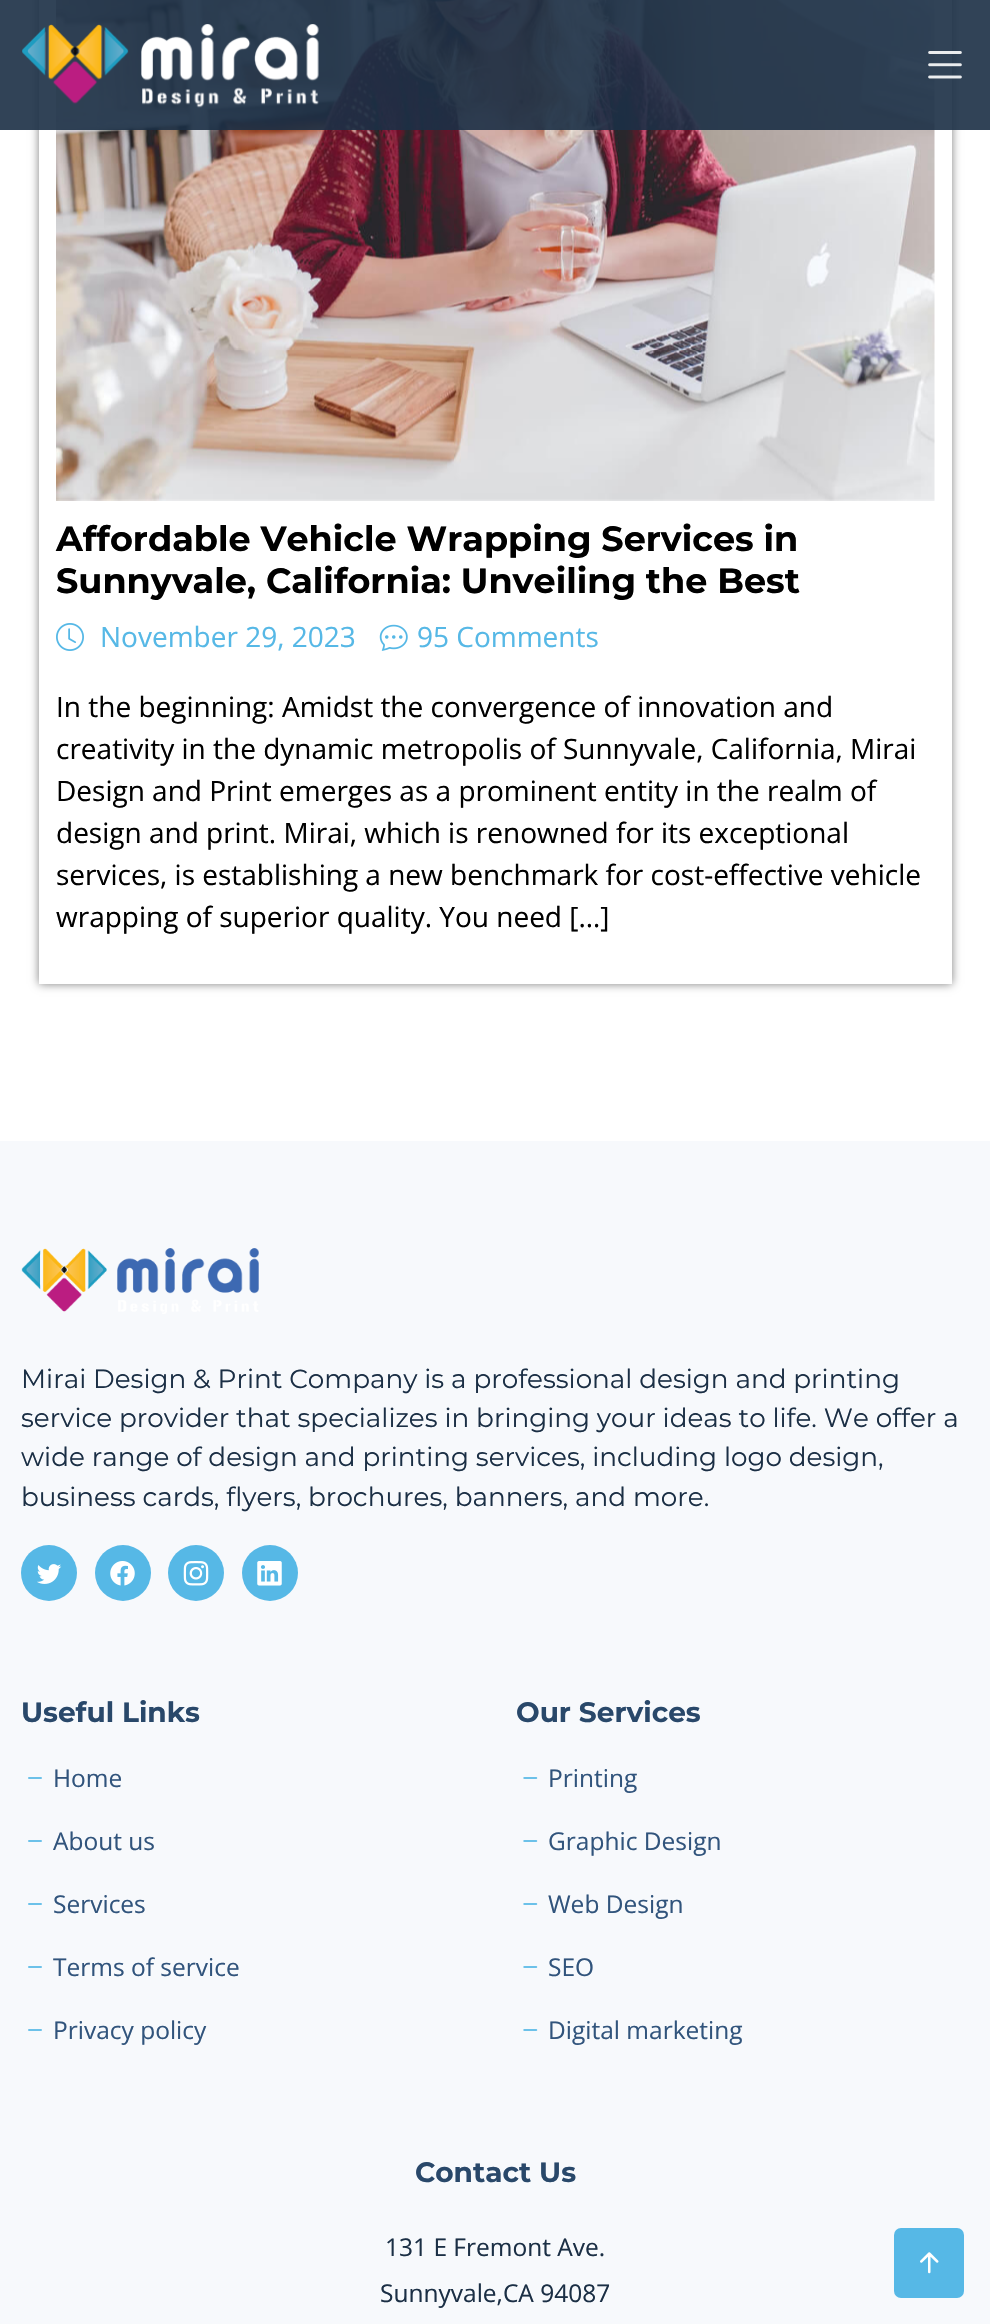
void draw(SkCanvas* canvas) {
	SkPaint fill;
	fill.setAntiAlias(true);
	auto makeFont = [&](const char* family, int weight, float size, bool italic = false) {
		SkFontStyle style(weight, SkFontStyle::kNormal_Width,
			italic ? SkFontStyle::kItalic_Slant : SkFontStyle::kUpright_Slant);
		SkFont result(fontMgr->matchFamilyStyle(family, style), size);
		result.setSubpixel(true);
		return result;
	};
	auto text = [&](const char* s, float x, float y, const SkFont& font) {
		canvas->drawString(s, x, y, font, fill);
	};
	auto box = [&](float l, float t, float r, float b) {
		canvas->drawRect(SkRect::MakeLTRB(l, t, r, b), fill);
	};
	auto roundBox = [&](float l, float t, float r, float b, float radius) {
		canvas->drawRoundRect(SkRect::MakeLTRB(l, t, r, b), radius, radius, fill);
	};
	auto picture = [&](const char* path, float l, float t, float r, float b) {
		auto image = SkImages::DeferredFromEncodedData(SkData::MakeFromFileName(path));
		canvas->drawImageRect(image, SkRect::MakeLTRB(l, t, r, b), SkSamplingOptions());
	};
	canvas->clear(0xFFFFFFFF);
	canvas->save();
	canvas->clipPath(SkPathBuilder(SkPathFillType::kEvenOdd).moveTo(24, 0).lineTo(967, 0).lineTo(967, 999).lineTo(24, 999).close().moveTo(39, -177).lineTo(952, -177).lineTo(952, 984).lineTo(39, 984).close().detach(), true);
	fill.setColor(0x80000000);
	fill.setMaskFilter(SkMaskFilter::MakeBlur(kNormal_SkBlurStyle, 4.5f));
	canvas->drawRect(SkRect::MakeLTRB(39, -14, 952, 984), fill);
	fill.setMaskFilter(nullptr);
	canvas->restore();
	picture("image2.png", 56, 0, 935, 501);
	fill.setColor(0xE61B2F45);
	box(0, 0, 990, 130);
	picture("image0.png", 22, 24, 319, 108);
	picture("image1.png", 928, 51, 962, 79);
	picture("image3.png", 56, 623, 84, 651);
	picture("image4.png", 379, 624, 408, 651);
	fill.setColor(0xFFF7F9FC);
	box(0, 1141, 990, 2324);
	picture("image5.png", 21, 1248, 259, 1314);
	fill.setColor(0xFF56B8E6);
	canvas->drawCircle(49, 1573, 28, fill);
	picture("image6.png", 37, 1564, 62, 1584);
	canvas->drawCircle(123, 1573, 28, fill);
	picture("image7.png", 110, 1561, 135, 1586);
	canvas->drawCircle(196, 1573, 28, fill);
	picture("image8.png", 183, 1561, 209, 1586);
	canvas->drawCircle(270, 1573, 28, fill);
	picture("image9.png", 257, 1561, 282, 1586);
	picture("image10.png", 28, 1777, 42, 1779);
	picture("image10.png", 28, 1840, 42, 1842);
	picture("image10.png", 28, 1903, 42, 1905);
	picture("image10.png", 28, 1966, 42, 1968);
	picture("image10.png", 28, 2029, 42, 2031);
	picture("image11.png", 523, 1777, 538, 1779);
	picture("image11.png", 523, 1840, 538, 1842);
	picture("image11.png", 523, 1903, 538, 1905);
	picture("image11.png", 523, 1966, 538, 1968);
	picture("image11.png", 523, 2029, 538, 2031);
	roundBox(894, 2228, 964, 2298, 7);
	picture("image12.png", 920, 2252, 939, 2274);
	auto font1 = makeFont("Montserrat", 700, 35);
	fill.setColor(0xFF000000);
	text("Affordable Vehicle Wrapping Services in", 56, 551, font1);
	text("Sunnyvale, California: Unveiling the Best", 56, 593, font1);
	auto font2 = makeFont("Open Sans", 400, 28);
	fill.setColor(0xFF56B8E6);
	text("November 29, 2023", 100, 647, font2);
	text("95 Comments", 417, 647, font2);
	fill.setColor(0xFF000000);
	text("In the beginning: Amidst the convergence of innovation and", 56, 717, font2);
	text("creativity in the dynamic metropolis of Sunnyvale, California, Mirai", 56, 759, font2);
	text("Design and Print emerges as a prominent entity in the realm of", 56, 801, font2);
	text("design and print. Mirai, which is renowned for its exceptional", 56, 843, font2);
	text("services, is establishing a new benchmark for cost-effective vehicle", 56, 885, font2);
	text("wrapping of superior quality. You need […]", 56, 927, font2);
	auto font3 = makeFont("Montserrat", 400, 26.25f);
	fill.setColor(0xFF1B2F45);
	text("Mirai Design & Print Company is a professional design and printing", 21, 1388, font3);
	text("service provider that specializes in bringing your ideas to life. We offer a", 21, 1427, font3);
	text("wide range of design and printing services, including logo design,", 21, 1466, font3);
	text("business cards, flyers, brochures, banners, and more.", 21, 1506, font3);
	auto font4 = makeFont("Montserrat", 700, 28);
	fill.setColor(0xFF29486A);
	text("Useful Links", 21, 1722, font4);
	auto font5 = makeFont("Open Sans", 400, 24.5f);
	fill.setColor(0xFF31547C);
	text("Home", 53, 1787, font5);
	text("About us", 53, 1850, font5);
	text("Services", 53, 1913, font5);
	text("Terms of service", 53, 1976, font5);
	text("Privacy policy", 53, 2039, font5);
	fill.setColor(0xFF29486A);
	text("Our Services", 516, 1722, font4);
	fill.setColor(0xFF31547C);
	text("Printing", 548, 1787, font5);
	text("Graphic Design", 548, 1850, font5);
	text("Web Design", 548, 1913, font5);
	text("SEO", 548, 1976, font5);
	text("Digital marketing", 548, 2039, font5);
	fill.setColor(0xFF29486A);
	text("Contact Us", 415, 2182, font4);
	fill.setColor(0xFF1B2F45);
	text("131 E Fremont Ave.", 385, 2256, font5);
	text("Sunnyvale,CA 94087", 380, 2302, font5);
}
